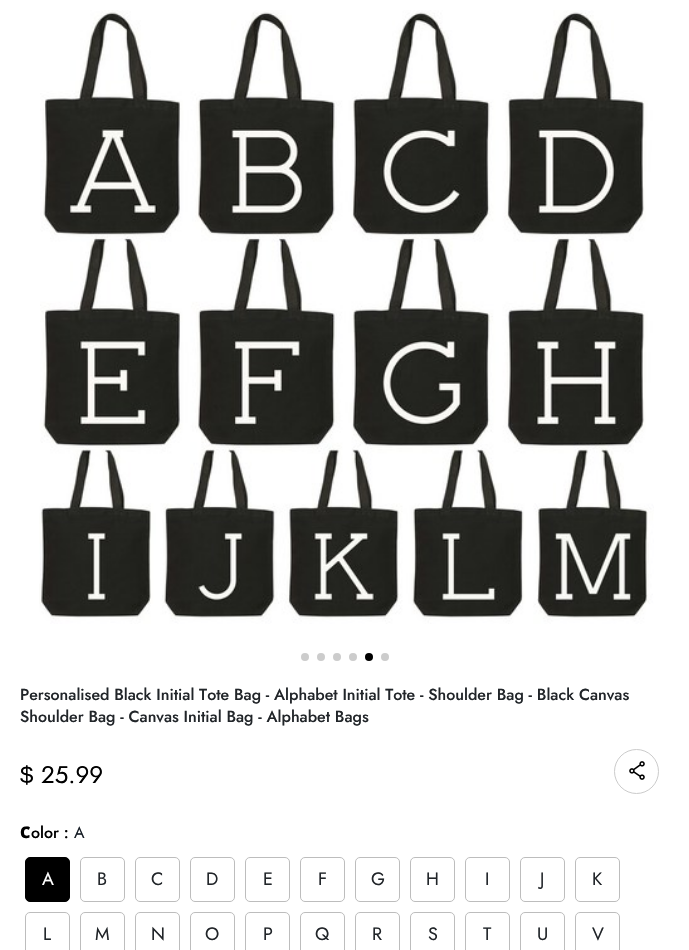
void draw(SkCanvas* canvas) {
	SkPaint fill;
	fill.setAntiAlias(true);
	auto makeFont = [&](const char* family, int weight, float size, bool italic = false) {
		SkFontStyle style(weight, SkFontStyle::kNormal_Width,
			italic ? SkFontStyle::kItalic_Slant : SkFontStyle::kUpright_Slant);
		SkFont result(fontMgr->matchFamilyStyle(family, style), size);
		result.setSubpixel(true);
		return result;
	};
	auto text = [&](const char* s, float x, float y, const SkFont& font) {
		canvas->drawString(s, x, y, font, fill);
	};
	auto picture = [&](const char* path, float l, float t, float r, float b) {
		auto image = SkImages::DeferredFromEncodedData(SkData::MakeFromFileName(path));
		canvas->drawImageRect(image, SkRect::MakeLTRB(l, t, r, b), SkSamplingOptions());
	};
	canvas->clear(0xFFFFFFFF);
	picture("image0.png", 39, 10, 654, 624);
	fill.setColor(0xFFCCCCCC);
	canvas->drawCircle(305, 657, 4, fill);
	canvas->drawCircle(321, 657, 4, fill);
	canvas->drawCircle(337, 657, 4, fill);
	canvas->drawCircle(353, 657, 4, fill);
	fill.setColor(0xFF000000);
	canvas->drawCircle(369, 657, 4, fill);
	fill.setColor(0xFFCCCCCC);
	canvas->drawCircle(385, 657, 4, fill);
	fill.setStyle(SkPaint::kStroke_Style);
	fill.setStrokeWidth(1);
	fill.setColor(0xFFCBCBCB);
	canvas->drawCircle(636.5f, 771.5f, 22, fill);
	picture("image1.png", 629, 761, 645, 780);
	fill.setStyle(SkPaint::kFill_Style);
	fill.setColor(0xFF000000);
	canvas->drawRoundRect(SkRect::MakeLTRB(25.5f, 857.5f, 69.5f, 901.5f), 4.5f, 4.5f, fill);
	fill.setStyle(SkPaint::kStroke_Style);
	canvas->drawRoundRect(SkRect::MakeLTRB(25.5f, 857.5f, 69.5f, 901.5f), 4.5f, 4.5f, fill);
	fill.setColor(0xFFBDBDBD);
	canvas->drawRoundRect(SkRect::MakeLTRB(80.5f, 857.5f, 124.5f, 901.5f), 4.5f, 4.5f, fill);
	canvas->drawRoundRect(SkRect::MakeLTRB(135.5f, 857.5f, 179.5f, 901.5f), 4.5f, 4.5f, fill);
	canvas->drawRoundRect(SkRect::MakeLTRB(190.5f, 857.5f, 234.5f, 901.5f), 4.5f, 4.5f, fill);
	canvas->drawRoundRect(SkRect::MakeLTRB(245.5f, 857.5f, 289.5f, 901.5f), 4.5f, 4.5f, fill);
	canvas->drawRoundRect(SkRect::MakeLTRB(300.5f, 857.5f, 344.5f, 901.5f), 4.5f, 4.5f, fill);
	canvas->drawRoundRect(SkRect::MakeLTRB(355.5f, 857.5f, 399.5f, 901.5f), 4.5f, 4.5f, fill);
	canvas->drawRoundRect(SkRect::MakeLTRB(410.5f, 857.5f, 454.5f, 901.5f), 4.5f, 4.5f, fill);
	canvas->drawRoundRect(SkRect::MakeLTRB(465.5f, 857.5f, 509.5f, 901.5f), 4.5f, 4.5f, fill);
	canvas->drawRoundRect(SkRect::MakeLTRB(520.5f, 857.5f, 564.5f, 901.5f), 4.5f, 4.5f, fill);
	canvas->drawRoundRect(SkRect::MakeLTRB(575.5f, 857.5f, 619.5f, 901.5f), 4.5f, 4.5f, fill);
	canvas->drawRoundRect(SkRect::MakeLTRB(25.5f, 912.5f, 69.5f, 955.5f), 4.5f, 4.5f, fill);
	canvas->drawRoundRect(SkRect::MakeLTRB(80.5f, 912.5f, 124.5f, 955.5f), 4.5f, 4.5f, fill);
	canvas->drawRoundRect(SkRect::MakeLTRB(135.5f, 912.5f, 179.5f, 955.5f), 4.5f, 4.5f, fill);
	canvas->drawRoundRect(SkRect::MakeLTRB(190.5f, 912.5f, 234.5f, 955.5f), 4.5f, 4.5f, fill);
	canvas->drawRoundRect(SkRect::MakeLTRB(245.5f, 912.5f, 289.5f, 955.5f), 4.5f, 4.5f, fill);
	canvas->drawRoundRect(SkRect::MakeLTRB(300.5f, 912.5f, 344.5f, 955.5f), 4.5f, 4.5f, fill);
	canvas->drawRoundRect(SkRect::MakeLTRB(355.5f, 912.5f, 399.5f, 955.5f), 4.5f, 4.5f, fill);
	canvas->drawRoundRect(SkRect::MakeLTRB(410.5f, 912.5f, 454.5f, 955.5f), 4.5f, 4.5f, fill);
	canvas->drawRoundRect(SkRect::MakeLTRB(465.5f, 912.5f, 509.5f, 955.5f), 4.5f, 4.5f, fill);
	canvas->drawRoundRect(SkRect::MakeLTRB(520.5f, 912.5f, 564.5f, 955.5f), 4.5f, 4.5f, fill);
	canvas->drawRoundRect(SkRect::MakeLTRB(575.5f, 912.5f, 619.5f, 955.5f), 4.5f, 4.5f, fill);
	auto font1 = makeFont("Jost", 500, 16);
	fill.setStyle(SkPaint::kFill_Style);
	fill.setColor(0xFF212529);
	text("Personalised Black Initial Tote Bag - Alphabet Initial Tote - Shoulder Bag - Black Canvas", 20, 700, font1);
	text("Shoulder Bag - Canvas Initial Bag - Alphabet Bags", 20, 722, font1);
	auto font2 = makeFont("Liberation Sans", 400, 24);
	fill.setColor(0xFF000000);
	text("$", 20, 783, font2);
	auto font3 = makeFont("Jost", 400, 24);
	text("25.99", 41, 783, font3);
	auto font4 = makeFont("Noto Sans", 900, 16);
	text("C", 20, 838, font4);
	text("olor :", 31, 838, font1);
	auto font5 = makeFont("Jost", 400, 16);
	fill.setColor(0xFF161D25);
	text("A", 74, 838, font5);
	auto font6 = makeFont("Jost", 400, 18);
	fill.setColor(0xFFFFFFFF);
	text("A", 42, 885, font6);
	fill.setColor(0xFF212529);
	text("B", 97, 885, font6);
	text("C", 151, 885, font6);
	text("D", 206, 885, font6);
	text("E", 263, 885, font6);
	text("F", 318, 885, font6);
	text("G", 371, 885, font6);
	text("H", 426, 885, font6);
	text("I", 485, 885, font6);
	text("J", 540, 885, font6);
	text("K", 592, 885, font6);
	text("L", 43, 940, font6);
	text("M", 95, 940, font6);
	text("N", 151, 940, font6);
	text("O", 205, 940, font6);
	text("P", 263, 940, font6);
	text("Q", 315, 940, font6);
	text("R", 372, 940, font6);
	text("S", 428, 940, font6);
	text("T", 483, 940, font6);
	text("U", 537, 940, font6);
	text("V", 592, 940, font6);
}
